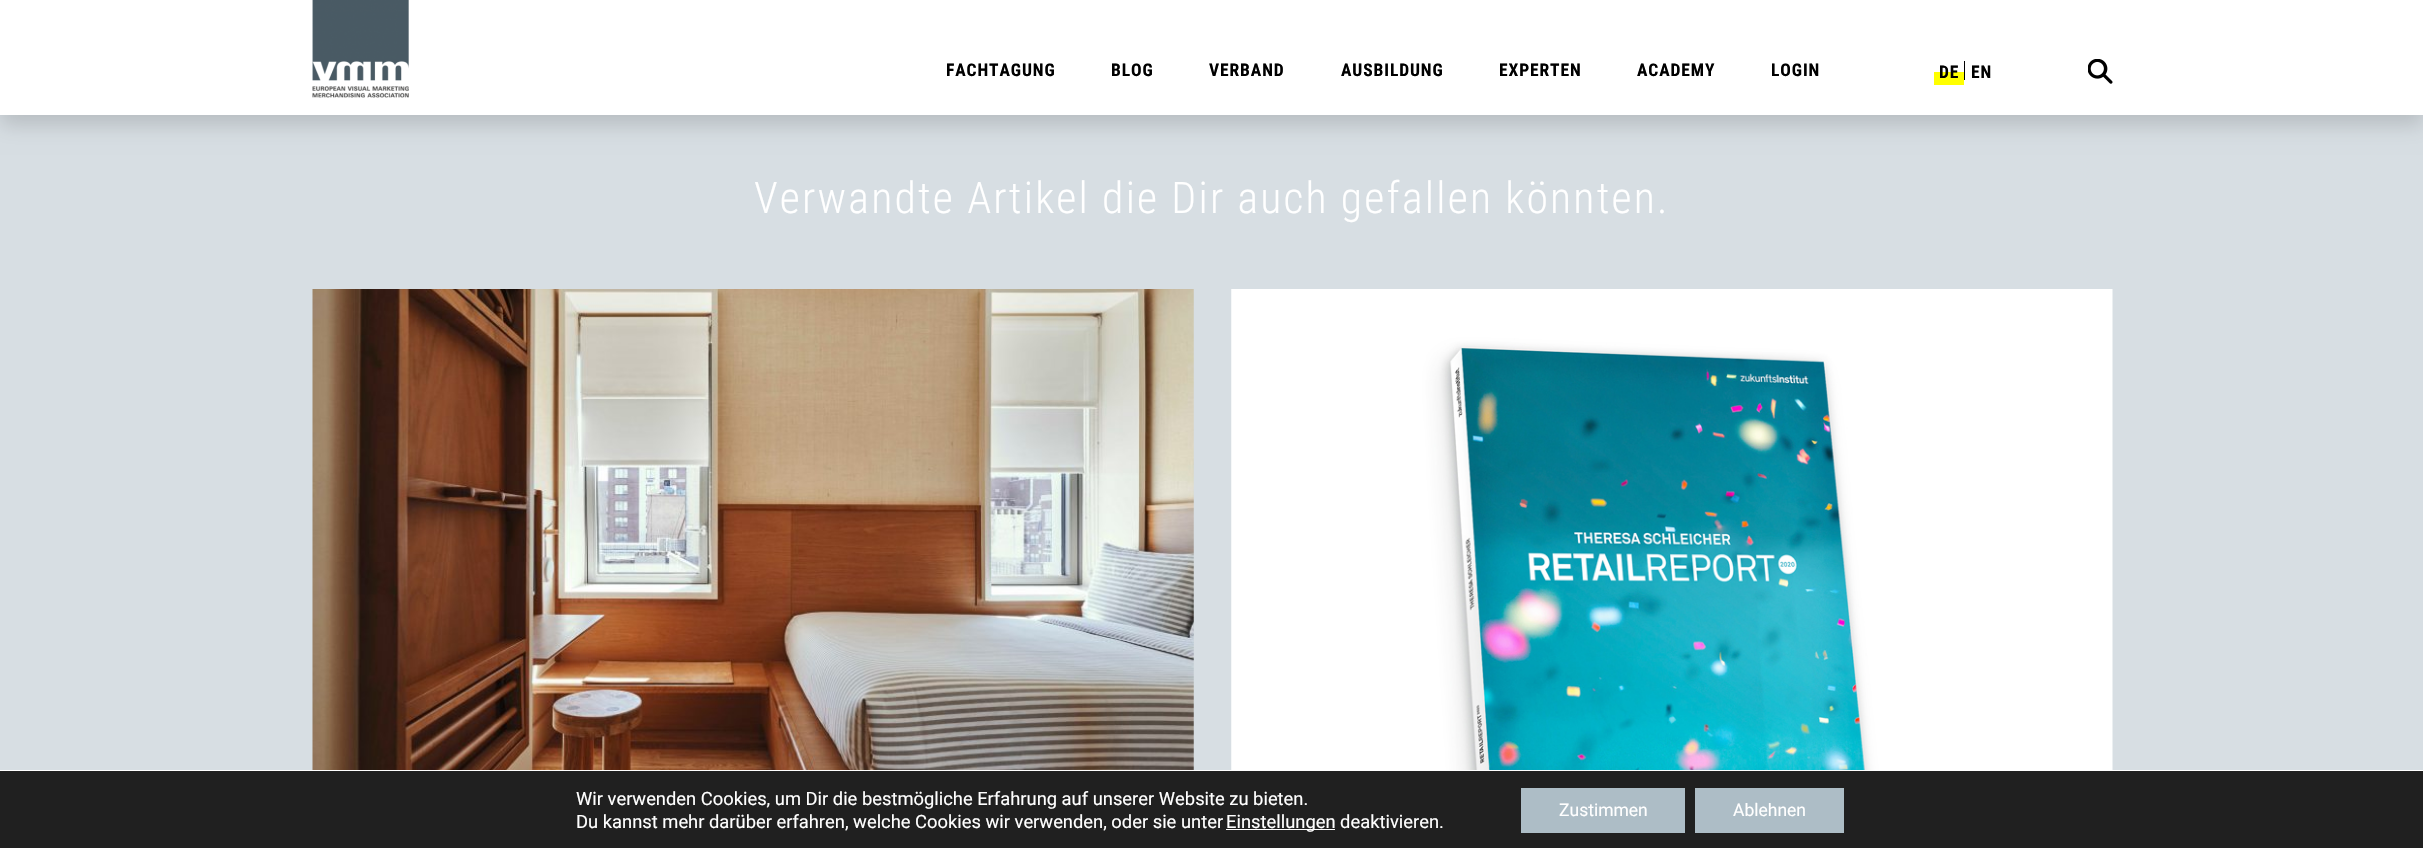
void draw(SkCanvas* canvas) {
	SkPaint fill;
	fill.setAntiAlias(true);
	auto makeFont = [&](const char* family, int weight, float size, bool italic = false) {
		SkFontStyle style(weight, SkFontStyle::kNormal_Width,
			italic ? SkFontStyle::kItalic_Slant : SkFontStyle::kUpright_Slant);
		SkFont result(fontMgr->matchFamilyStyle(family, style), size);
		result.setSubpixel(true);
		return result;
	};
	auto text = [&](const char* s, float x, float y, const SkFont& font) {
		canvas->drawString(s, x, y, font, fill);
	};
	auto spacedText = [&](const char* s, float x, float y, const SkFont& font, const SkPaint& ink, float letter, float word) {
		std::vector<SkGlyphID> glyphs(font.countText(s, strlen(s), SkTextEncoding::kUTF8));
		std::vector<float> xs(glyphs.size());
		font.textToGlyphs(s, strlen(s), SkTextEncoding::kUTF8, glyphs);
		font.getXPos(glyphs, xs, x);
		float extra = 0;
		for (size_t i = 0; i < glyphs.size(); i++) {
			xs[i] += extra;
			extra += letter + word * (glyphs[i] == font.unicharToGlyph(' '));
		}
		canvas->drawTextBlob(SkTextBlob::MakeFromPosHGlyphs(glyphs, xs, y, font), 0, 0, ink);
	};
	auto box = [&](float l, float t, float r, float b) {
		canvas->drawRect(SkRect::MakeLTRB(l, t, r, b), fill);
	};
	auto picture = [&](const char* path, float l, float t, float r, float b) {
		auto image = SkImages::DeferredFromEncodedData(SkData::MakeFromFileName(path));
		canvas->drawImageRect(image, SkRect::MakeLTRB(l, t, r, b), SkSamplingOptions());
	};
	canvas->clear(0xFFD7DEE3);
	fill.setColor(0x26000000);
	fill.setMaskFilter(SkMaskFilter::MakeBlur(kNormal_SkBlurStyle, 10));
	canvas->drawRect(SkRect::MakeLTRB(0, 10, 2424, 125), fill);
	fill.setMaskFilter(nullptr);
	fill.setColor(0xFFFFFFFF);
	box(0, 0, 2423, 115);
	picture("image0.png", 312, 0, 409, 98);
	fill.setColor(0xFF000000);
	box(1964, 61, 1965, 80);
	{
		const SkColor colors[] = {0xFFFFFFFF, 0xFFFFFFFF, 0xFFFFFF00, 0xFFFFFF00, 0xFFFFFFFF, 0xFFFFFFFF};
		const float stops[] = {0, 0.5f, 0.5f, 0.9f, 0.9f, 1};
		const SkPoint ends[] = {{1949, 56}, {1949, 88}};
		fill.setShader(SkGradientShader::MakeLinear(ends, colors, stops, 6, SkTileMode::kClamp));
		fill.setAlpha(255);
	}
	box(1934, 72, 1964, 85);
	picture("image1.png", 2088, 59, 2113, 84);
	picture("image2.png", 312, 289, 1194, 770);
	picture("image3.png", 1231, 289, 2113, 770);
	fill.setShader(nullptr);
	fill.setColor(0xFF202020);
	box(0, 771, 2423, 848);
	fill.setColor(0xFFFFFFFF);
	box(0, 770, 2423, 771);
	box(1226, 829, 1335, 830);
	fill.setColor(0xFFADBDC6);
	box(1521, 788, 1685, 833);
	box(1695, 788, 1844, 833);
	auto font1 = makeFont("Roboto Condensed", 700, 17.5f);
	fill.setColor(0xFF000000);
	spacedText("FACHTAGUNG", 946, 76, font1, fill, 0.9f, 0);
	spacedText("BLOG", 1111, 76, font1, fill, 0.9f, 0);
	spacedText("VERBAND", 1209, 76, font1, fill, 0.9f, 0);
	spacedText("AUSBILDUNG", 1341, 76, font1, fill, 0.9f, 0);
	spacedText("EXPERTEN", 1499, 76, font1, fill, 0.9f, 0);
	spacedText("ACADEMY", 1637, 76, font1, fill, 0.9f, 0);
	spacedText("LOGIN", 1771, 76, font1, fill, 0.9f, 0);
	spacedText("DE", 1939, 78, font1, fill, 0.9f, 0);
	spacedText("EN", 1971, 78, font1, fill, 0.9f, 0);
	auto font2 = makeFont("Roboto Condensed", 300, 43.75f);
	fill.setColor(0xFFFFFFFF);
	spacedText("Verwandte Artikel die Dir auch gefallen könnten.", 754, 213, font2, fill, 2.2f, 0);
	auto font3 = makeFont("Roboto", 400, 18.35f);
	text("Wir verwenden Cookies, um Dir die bestmögliche Erfahrung auf unserer Website zu bieten.", 576, 805, font3);
	text("Du kannst mehr darüber erfahren, welche Cookies wir verwenden, oder sie unter", 576, 828, font3);
	text("Einstellungen deaktivieren.", 1226, 828, font3);
	auto font4 = makeFont("Roboto", 400, 17.5f);
	text("Zustimmen", 1559, 816, font4);
	text("Ablehnen", 1733, 816, font4);
}
